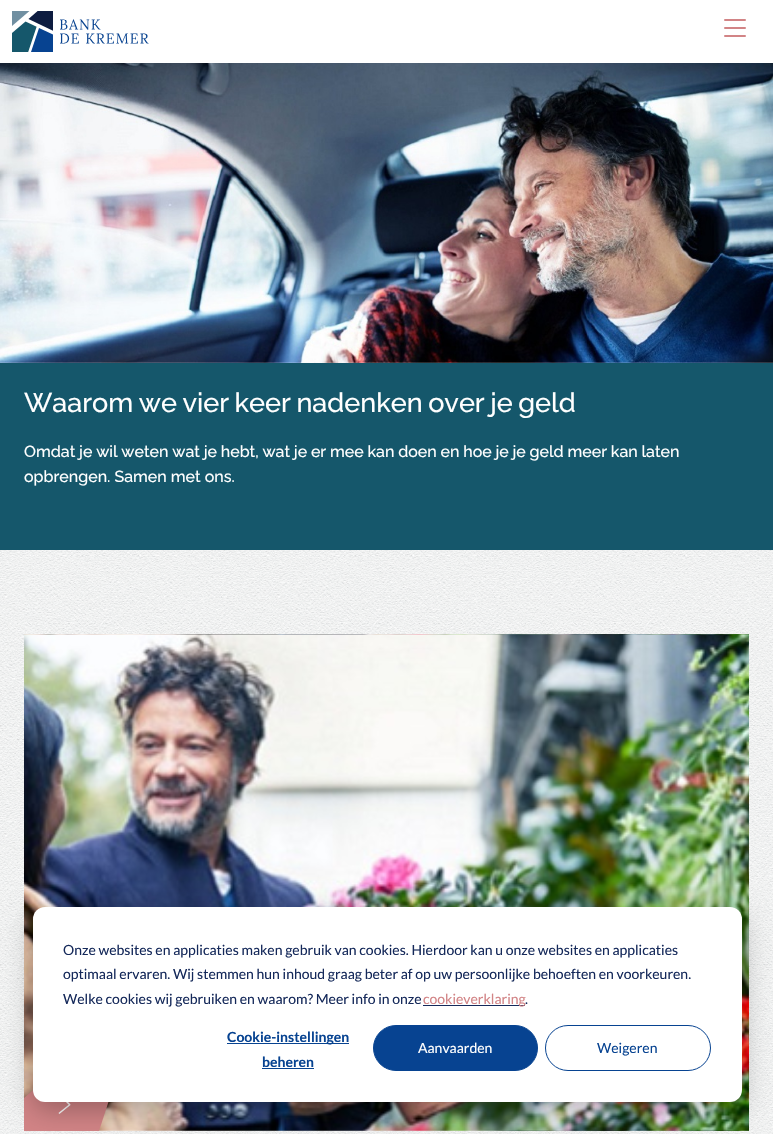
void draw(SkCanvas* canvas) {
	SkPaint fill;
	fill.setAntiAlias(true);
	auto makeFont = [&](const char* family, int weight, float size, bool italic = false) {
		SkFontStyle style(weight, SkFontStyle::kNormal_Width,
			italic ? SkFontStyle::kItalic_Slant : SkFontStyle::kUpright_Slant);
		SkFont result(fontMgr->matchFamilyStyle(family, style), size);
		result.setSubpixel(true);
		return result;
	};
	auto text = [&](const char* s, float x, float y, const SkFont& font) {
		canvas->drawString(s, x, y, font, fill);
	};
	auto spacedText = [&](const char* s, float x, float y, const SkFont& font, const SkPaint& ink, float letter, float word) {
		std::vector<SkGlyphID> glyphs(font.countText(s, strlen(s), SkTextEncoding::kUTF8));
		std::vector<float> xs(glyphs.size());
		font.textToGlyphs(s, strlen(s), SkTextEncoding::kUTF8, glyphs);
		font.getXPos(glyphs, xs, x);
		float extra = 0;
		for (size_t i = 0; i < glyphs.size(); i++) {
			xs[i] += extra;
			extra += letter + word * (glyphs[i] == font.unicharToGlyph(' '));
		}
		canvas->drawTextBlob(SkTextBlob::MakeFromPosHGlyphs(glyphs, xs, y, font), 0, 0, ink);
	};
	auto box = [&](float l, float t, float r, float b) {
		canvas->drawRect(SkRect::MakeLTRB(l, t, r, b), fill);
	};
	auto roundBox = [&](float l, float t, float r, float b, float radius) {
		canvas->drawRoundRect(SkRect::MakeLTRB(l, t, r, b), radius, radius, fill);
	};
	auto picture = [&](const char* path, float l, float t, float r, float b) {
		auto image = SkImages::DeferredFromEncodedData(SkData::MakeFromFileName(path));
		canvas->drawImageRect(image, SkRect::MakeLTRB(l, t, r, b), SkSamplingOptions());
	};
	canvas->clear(0xFFFFFFFF);
	picture("image0.png", 0, 362, 773, 1134);
	picture("image1.png", 12, 11, 149, 52);
	fill.setColor(0xFFD28486);
	roundBox(724, 19, 746, 21, 1);
	roundBox(724, 27, 746, 29, 1);
	roundBox(724, 35, 746, 37, 1);
	picture("image2.png", 0, 63, 773, 363);
	fill.setColor(0xFF15576B);
	box(0, 363, 773, 550);
	picture("image3.png", 24, 634, 749, 1131);
	fill.setColor(0xFFD28486);
	canvas->drawPath(SkPathBuilder(SkPathFillType::kEvenOdd).moveTo(24, 1131).lineTo(99, 1131).lineTo(112, 1091).lineTo(61, 1066).lineTo(24, 1098).close().detach(), fill);
	fill.setStyle(SkPaint::kStroke_Style);
	fill.setStrokeWidth(1.5f);
	fill.setStrokeCap(SkPaint::kSquare_Cap);
	fill.setColor(0xFFFFFFFF);
	canvas->drawPath(SkPathBuilder().moveTo(59.5f, 1094.5f).lineTo(69.5f, 1104.5f).moveTo(59.5f, 1113).lineTo(69.5f, 1105).detach(), fill);
	fill.setStyle(SkPaint::kFill_Style);
	fill.setColor(0x47000000);
	fill.setMaskFilter(SkMaskFilter::MakeBlur(kNormal_SkBlurStyle, 14));
	canvas->drawRoundRect(SkRect::MakeLTRB(33, 915, 742, 1110), 12, 12, fill);
	fill.setMaskFilter(nullptr);
	fill.setColor(0xFFFFFFFF);
	roundBox(33, 907, 742, 1102, 12);
	fill.setColor(0xFF15295A);
	box(423, 1005, 525, 1006);
	fill.setColor(0xFF074391);
	box(227, 1043, 349, 1044);
	box(262, 1068, 314, 1069);
	canvas->drawRoundRect(SkRect::MakeLTRB(373.5f, 1025.5f, 537.5f, 1070.5f), 22.5f, 22.5f, fill);
	fill.setStyle(SkPaint::kStroke_Style);
	fill.setStrokeWidth(1);
	fill.setStrokeCap(SkPaint::kButt_Cap);
	canvas->drawRoundRect(SkRect::MakeLTRB(373.5f, 1025.5f, 537.5f, 1070.5f), 22.5f, 22.5f, fill);
	canvas->drawRoundRect(SkRect::MakeLTRB(545.5f, 1025.5f, 710.5f, 1070.5f), 22.5f, 22.5f, fill);
	auto font1 = makeFont("Raleway", 500, 27);
	fill.setStyle(SkPaint::kFill_Style);
	fill.setColor(0xFFFFFFFF);
	spacedText("Waarom we vier keer nadenken over je geld", 24, 412, font1, fill, 0, -1.25f);
	auto font2 = makeFont("Raleway", 500, 16);
	spacedText("Omdat je wil weten wat je hebt, wat je er mee kan doen en hoe je je geld meer kan laten", 24, 457, font2, fill, 0, -0.25f);
	text("opbrengen. Samen met ons.", 24, 482, font2);
	auto font3 = makeFont("Lato", 400, 14);
	fill.setColor(0xFF15295A);
	text("Onze websites en applicaties maken gebruik van cookies. Hierdoor kan u onze websites en applicaties", 63, 955, font3);
	text("optimaal ervaren. Wij stemmen hun inhoud graag beter af op uw persoonlijke behoeften en voorkeuren.", 63, 979, font3);
	text("Welke cookies wij gebruiken en waarom? Meer info in onze", 63, 1004, font3);
	fill.setColor(0xFFD28486);
	text("cookieverklaring", 423, 1004, font3);
	fill.setColor(0xFF15295A);
	text(".", 525, 1004, font3);
	auto font4 = makeFont("Lato", 700, 14);
	fill.setColor(0xFF074391);
	text("Cookie-instellingen", 227, 1042, font4);
	text("beheren", 262, 1067, font4);
	fill.setColor(0xFFFFFFFF);
	text("Aanvaarden", 418, 1053, font3);
	fill.setColor(0xFF074391);
	text("Weigeren", 597, 1053, font3);
}
